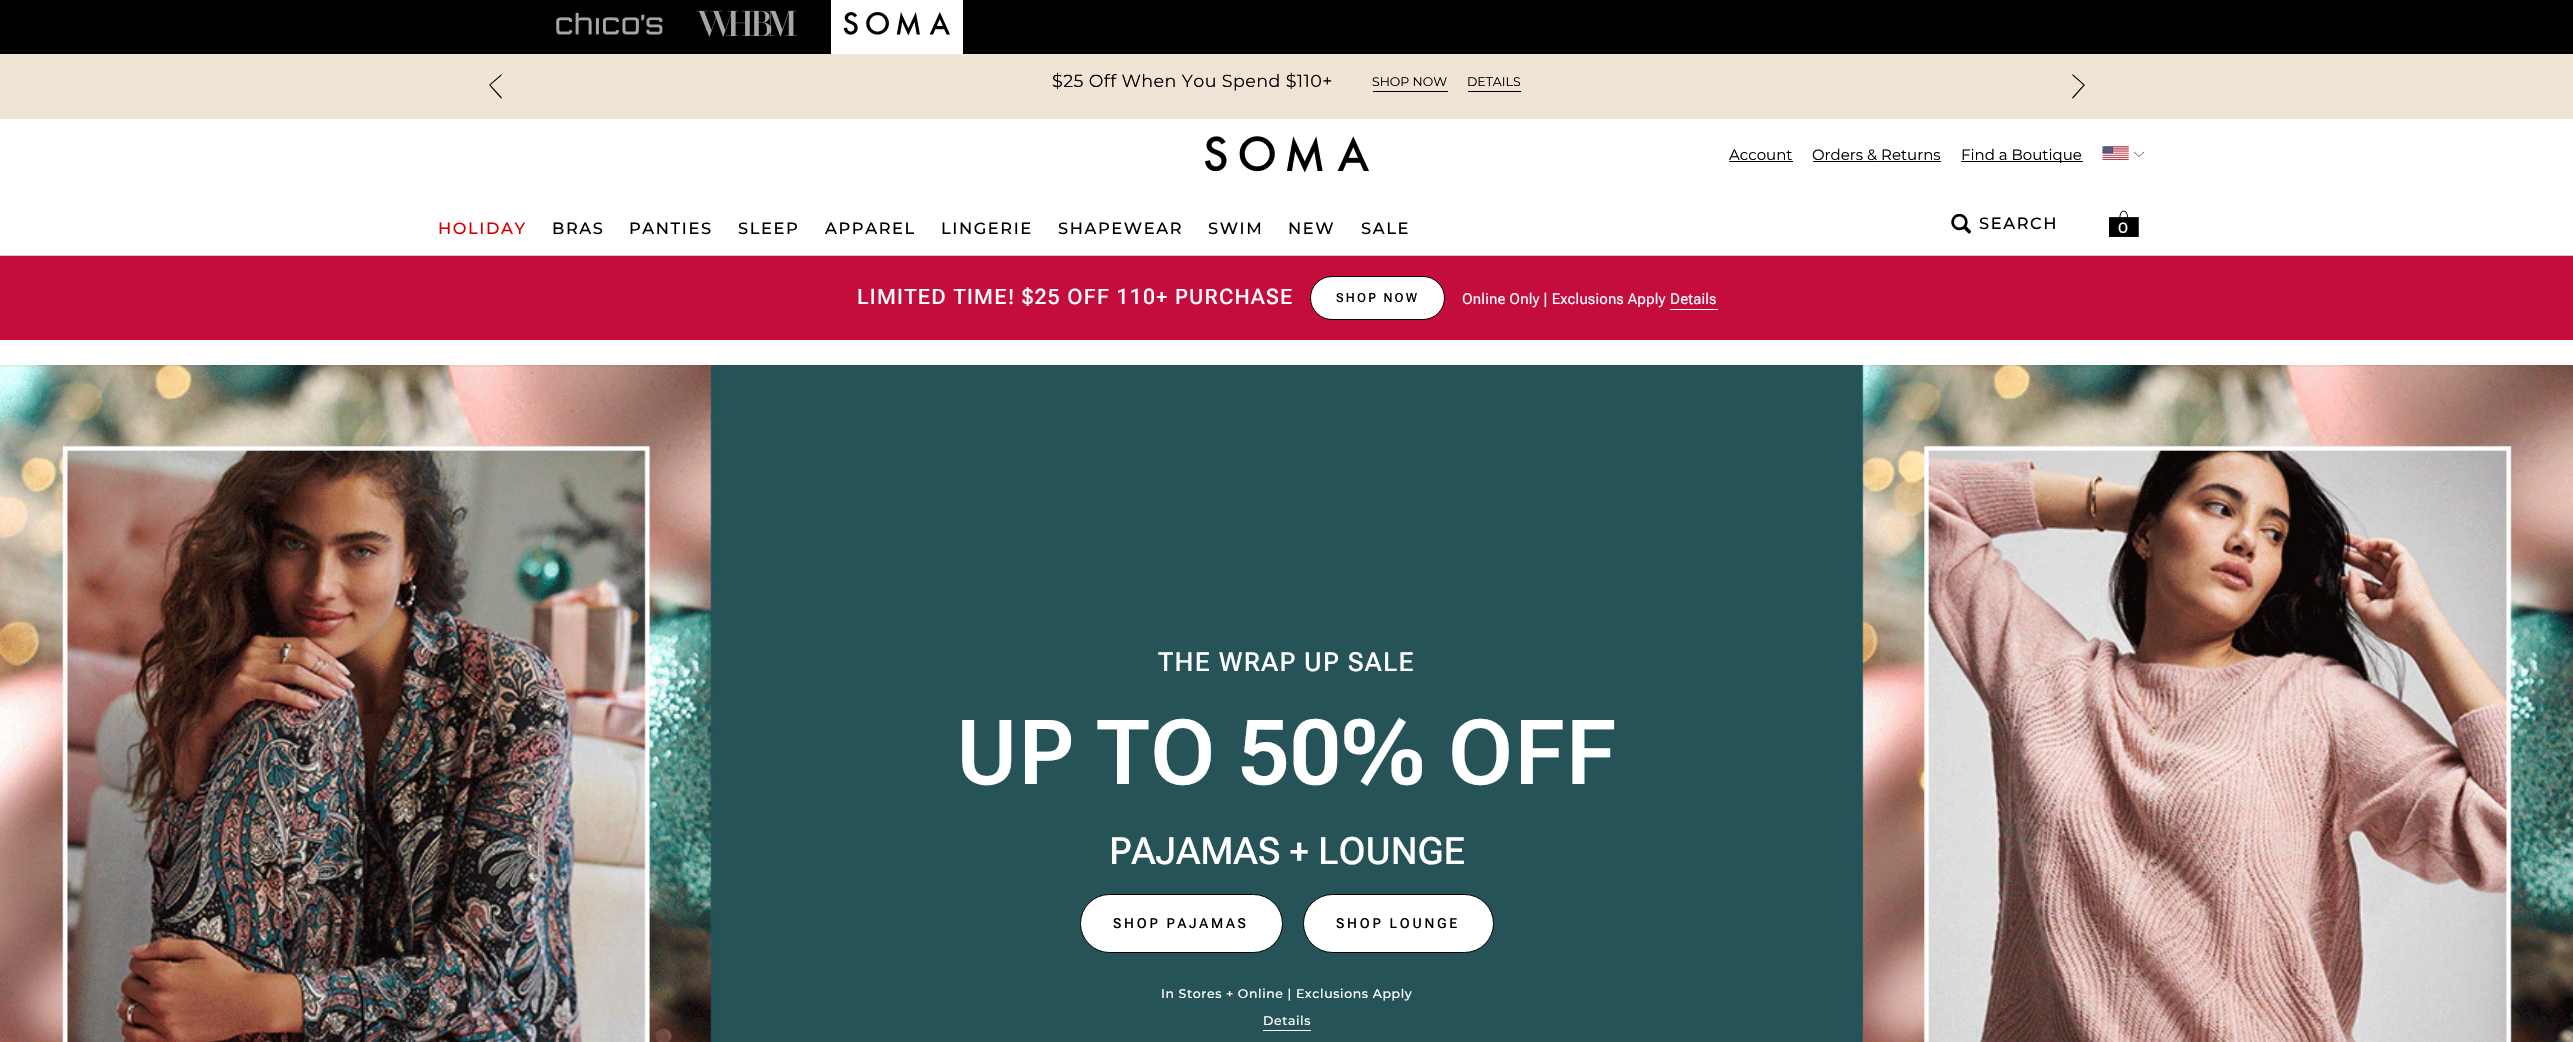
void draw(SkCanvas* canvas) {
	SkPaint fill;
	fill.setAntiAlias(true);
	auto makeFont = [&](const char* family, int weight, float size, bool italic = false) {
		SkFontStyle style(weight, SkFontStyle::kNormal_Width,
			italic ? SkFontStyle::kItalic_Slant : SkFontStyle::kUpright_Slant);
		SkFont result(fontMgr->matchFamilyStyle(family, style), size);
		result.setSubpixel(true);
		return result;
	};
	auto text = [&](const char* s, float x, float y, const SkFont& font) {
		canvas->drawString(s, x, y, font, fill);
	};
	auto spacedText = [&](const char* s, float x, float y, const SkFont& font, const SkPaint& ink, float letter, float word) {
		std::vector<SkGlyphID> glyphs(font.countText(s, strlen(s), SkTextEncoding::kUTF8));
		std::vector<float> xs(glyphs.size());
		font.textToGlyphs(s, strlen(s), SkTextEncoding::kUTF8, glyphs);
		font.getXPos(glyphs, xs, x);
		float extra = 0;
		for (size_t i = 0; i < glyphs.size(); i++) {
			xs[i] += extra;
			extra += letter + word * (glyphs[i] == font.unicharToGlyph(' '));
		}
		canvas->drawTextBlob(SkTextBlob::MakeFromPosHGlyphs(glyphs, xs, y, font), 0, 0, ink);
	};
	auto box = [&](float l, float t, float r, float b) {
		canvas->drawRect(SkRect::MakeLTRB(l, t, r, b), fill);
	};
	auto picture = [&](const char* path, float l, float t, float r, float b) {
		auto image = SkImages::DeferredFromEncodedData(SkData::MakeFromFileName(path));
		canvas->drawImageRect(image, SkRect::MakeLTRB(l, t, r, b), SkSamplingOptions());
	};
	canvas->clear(0xFFFFFFFF);
	fill.setColor(0xFF000000);
	box(0, 0, 2573, 54);
	picture("image0.png", 556, 12, 663, 35);
	picture("image1.png", 697, 10, 797, 37);
	fill.setColor(0xFFFFFFFF);
	box(831, 0, 963, 54);
	picture("image2.png", 843, 12, 950, 36);
	fill.setColor(0xFFF0E4D7);
	box(0, 54, 2573, 119);
	fill.setColor(0xFF000000);
	canvas->drawPath(SkPathBuilder().moveTo(501.5f, 74).lineTo(489, 85).lineTo(501.5f, 99).lineTo(501.5f, 97).lineTo(490.5f, 85).lineTo(501.5f, 75.5f).close().detach(), fill);
	box(1373, 91, 1448, 92);
	box(1468, 91, 1521, 92);
	canvas->drawPath(SkPathBuilder().moveTo(2072.5f, 74).lineTo(2085, 85).lineTo(2072.5f, 99).lineTo(2072.5f, 97).lineTo(2083.5f, 85).lineTo(2072.5f, 75.5f).close().detach(), fill);
	fill.setColor(0xFFCCCCCC);
	box(0, 255, 2573, 256);
	picture("image3.png", 1205, 136, 1369, 173);
	fill.setColor(0xFF000000);
	box(1729, 161, 1793, 162);
	box(1813, 161, 1941, 162);
	box(1961, 161, 2083, 162);
	picture("image4.png", 2102, 146, 2129, 160);
	fill.setStyle(SkPaint::kStroke_Style);
	fill.setStrokeWidth(0.6f);
	canvas->drawPath(SkPathBuilder().moveTo(2144, 152).lineTo(2139, 156.5f).lineTo(2134, 152).detach(), fill);
	picture("image5.png", 1951, 214, 1971, 234);
	picture("image6.png", 2109, 210, 2139, 237);
	fill.setStyle(SkPaint::kFill_Style);
	fill.setColor(0xFFC40D3C);
	box(0, 256, 2573, 340);
	fill.setColor(0xFFFFFFFF);
	canvas->drawRoundRect(SkRect::MakeLTRB(1310.5f, 276.5f, 1444.5f, 319.5f), 21.5f, 21.5f, fill);
	fill.setStyle(SkPaint::kStroke_Style);
	fill.setStrokeWidth(1);
	fill.setColor(0xFF000000);
	canvas->drawRoundRect(SkRect::MakeLTRB(1310.5f, 276.5f, 1444.5f, 319.5f), 21.5f, 21.5f, fill);
	fill.setStyle(SkPaint::kFill_Style);
	fill.setColor(0xFFFFFFFF);
	box(1670, 309, 1718, 310);
	picture("image7.png", 0, 365, 2573, 1042);
	canvas->drawRoundRect(SkRect::MakeLTRB(1080.5f, 894.5f, 1282.5f, 952.5f), 29, 29, fill);
	fill.setStyle(SkPaint::kStroke_Style);
	fill.setColor(0xFF000000);
	canvas->drawRoundRect(SkRect::MakeLTRB(1080.5f, 894.5f, 1282.5f, 952.5f), 29, 29, fill);
	fill.setStyle(SkPaint::kFill_Style);
	fill.setColor(0xFFFFFFFF);
	canvas->drawRoundRect(SkRect::MakeLTRB(1303.5f, 894.5f, 1493.5f, 952.5f), 29, 29, fill);
	fill.setStyle(SkPaint::kStroke_Style);
	fill.setColor(0xFF000000);
	canvas->drawRoundRect(SkRect::MakeLTRB(1303.5f, 894.5f, 1493.5f, 952.5f), 29, 29, fill);
	fill.setStyle(SkPaint::kFill_Style);
	fill.setColor(0xFFFFFFFF);
	box(1263, 1030, 1311, 1031);
	auto font1 = makeFont("Montserrat", 400, 17.5f);
	fill.setColor(0xFF000000);
	spacedText("$25 Off When You Spend $110+", 1052, 87, font1, fill, 0.4f, 0);
	auto font2 = makeFont("Montserrat", 400, 12.5f);
	text("SHOP NOW", 1372, 86, font2);
	text("DETAILS", 1467, 86, font2);
	auto font3 = makeFont("Montserrat", 400, 15);
	text("Account", 1729, 160, font3);
	text("Orders & Returns", 1812, 160, font3);
	text("Find a Boutique", 1961, 160, font3);
	auto font4 = makeFont("Montserrat", 500, 16.25f);
	fill.setColor(0xFFD50000);
	spacedText("HOLIDAY", 438, 234, font4, fill, 1.6f, 0);
	fill.setColor(0xFF000000);
	spacedText("BRAS", 552, 234, font4, fill, 1.6f, 0);
	spacedText("PANTIES", 629, 234, font4, fill, 1.6f, 0);
	spacedText("SLEEP", 738, 234, font4, fill, 1.6f, 0);
	spacedText("APPAREL", 825, 234, font4, fill, 1.6f, 0);
	spacedText("LINGERIE", 941, 234, font4, fill, 1.6f, 0);
	spacedText("SHAPEWEAR", 1058, 234, font4, fill, 1.6f, 0);
	spacedText("SWIM", 1208, 234, font4, fill, 1.6f, 0);
	spacedText("NEW", 1288, 234, font4, fill, 1.6f, 0);
	spacedText("SALE", 1361, 234, font4, fill, 1.6f, 0);
	spacedText("SEARCH", 1979, 229, font4, fill, 1.6f, 0);
	auto font5 = makeFont("Montserrat", 500, 15);
	fill.setColor(0xFFFFFFFF);
	text("0", 2118, 233, font5);
	auto font6 = makeFont("Roboto Flex", 500, 21.25f);
	spacedText("LIMITED TIME! $25 OFF 110+ PURCHASE", 857, 304, font6, fill, 1.25f, 0);
	auto font7 = makeFont("Roboto Flex", 500, 12.5f);
	fill.setColor(0xFF000000);
	spacedText("SHOP NOW", 1336, 302, font7, fill, 2.25f, 0);
	auto font8 = makeFont("Roboto Flex", 400, 15);
	fill.setColor(0xFFFFFFFF);
	spacedText("Online Only | Exclusions Apply", 1462, 304, font8, fill, 0.15f, 0);
	spacedText("Details", 1670, 304, font8, fill, 0.15f, 0);
	auto font9 = makeFont("Roboto Flex", 500, 26.25f);
	spacedText("THE WRAP UP SALE", 1158, 671, font9, fill, 1.25f, 0);
	auto font10 = makeFont("Roboto Flex", 600, 90);
	spacedText("UP TO 50% OFF", 956, 784, font10, fill, 0.6f, 0);
	auto font11 = makeFont("Roboto Flex", 500, 37.5f);
	text("PAJAMAS + LOUNGE", 1109, 864, font11);
	auto font12 = makeFont("Roboto Flex", 500, 13.75f);
	fill.setColor(0xFF000000);
	spacedText("SHOP PAJAMAS", 1113, 928, font12, fill, 2.75f, 0);
	spacedText("SHOP LOUNGE", 1336, 928, font12, fill, 2.75f, 0);
	auto font13 = makeFont("Montserrat", 500, 12.5f);
	fill.setColor(0xFFFFFFFF);
	spacedText("In Stores + Online | Exclusions Apply", 1161, 998, font13, fill, 0.6f, 0);
	spacedText("Details", 1263, 1025, font13, fill, 0.6f, 0);
}
